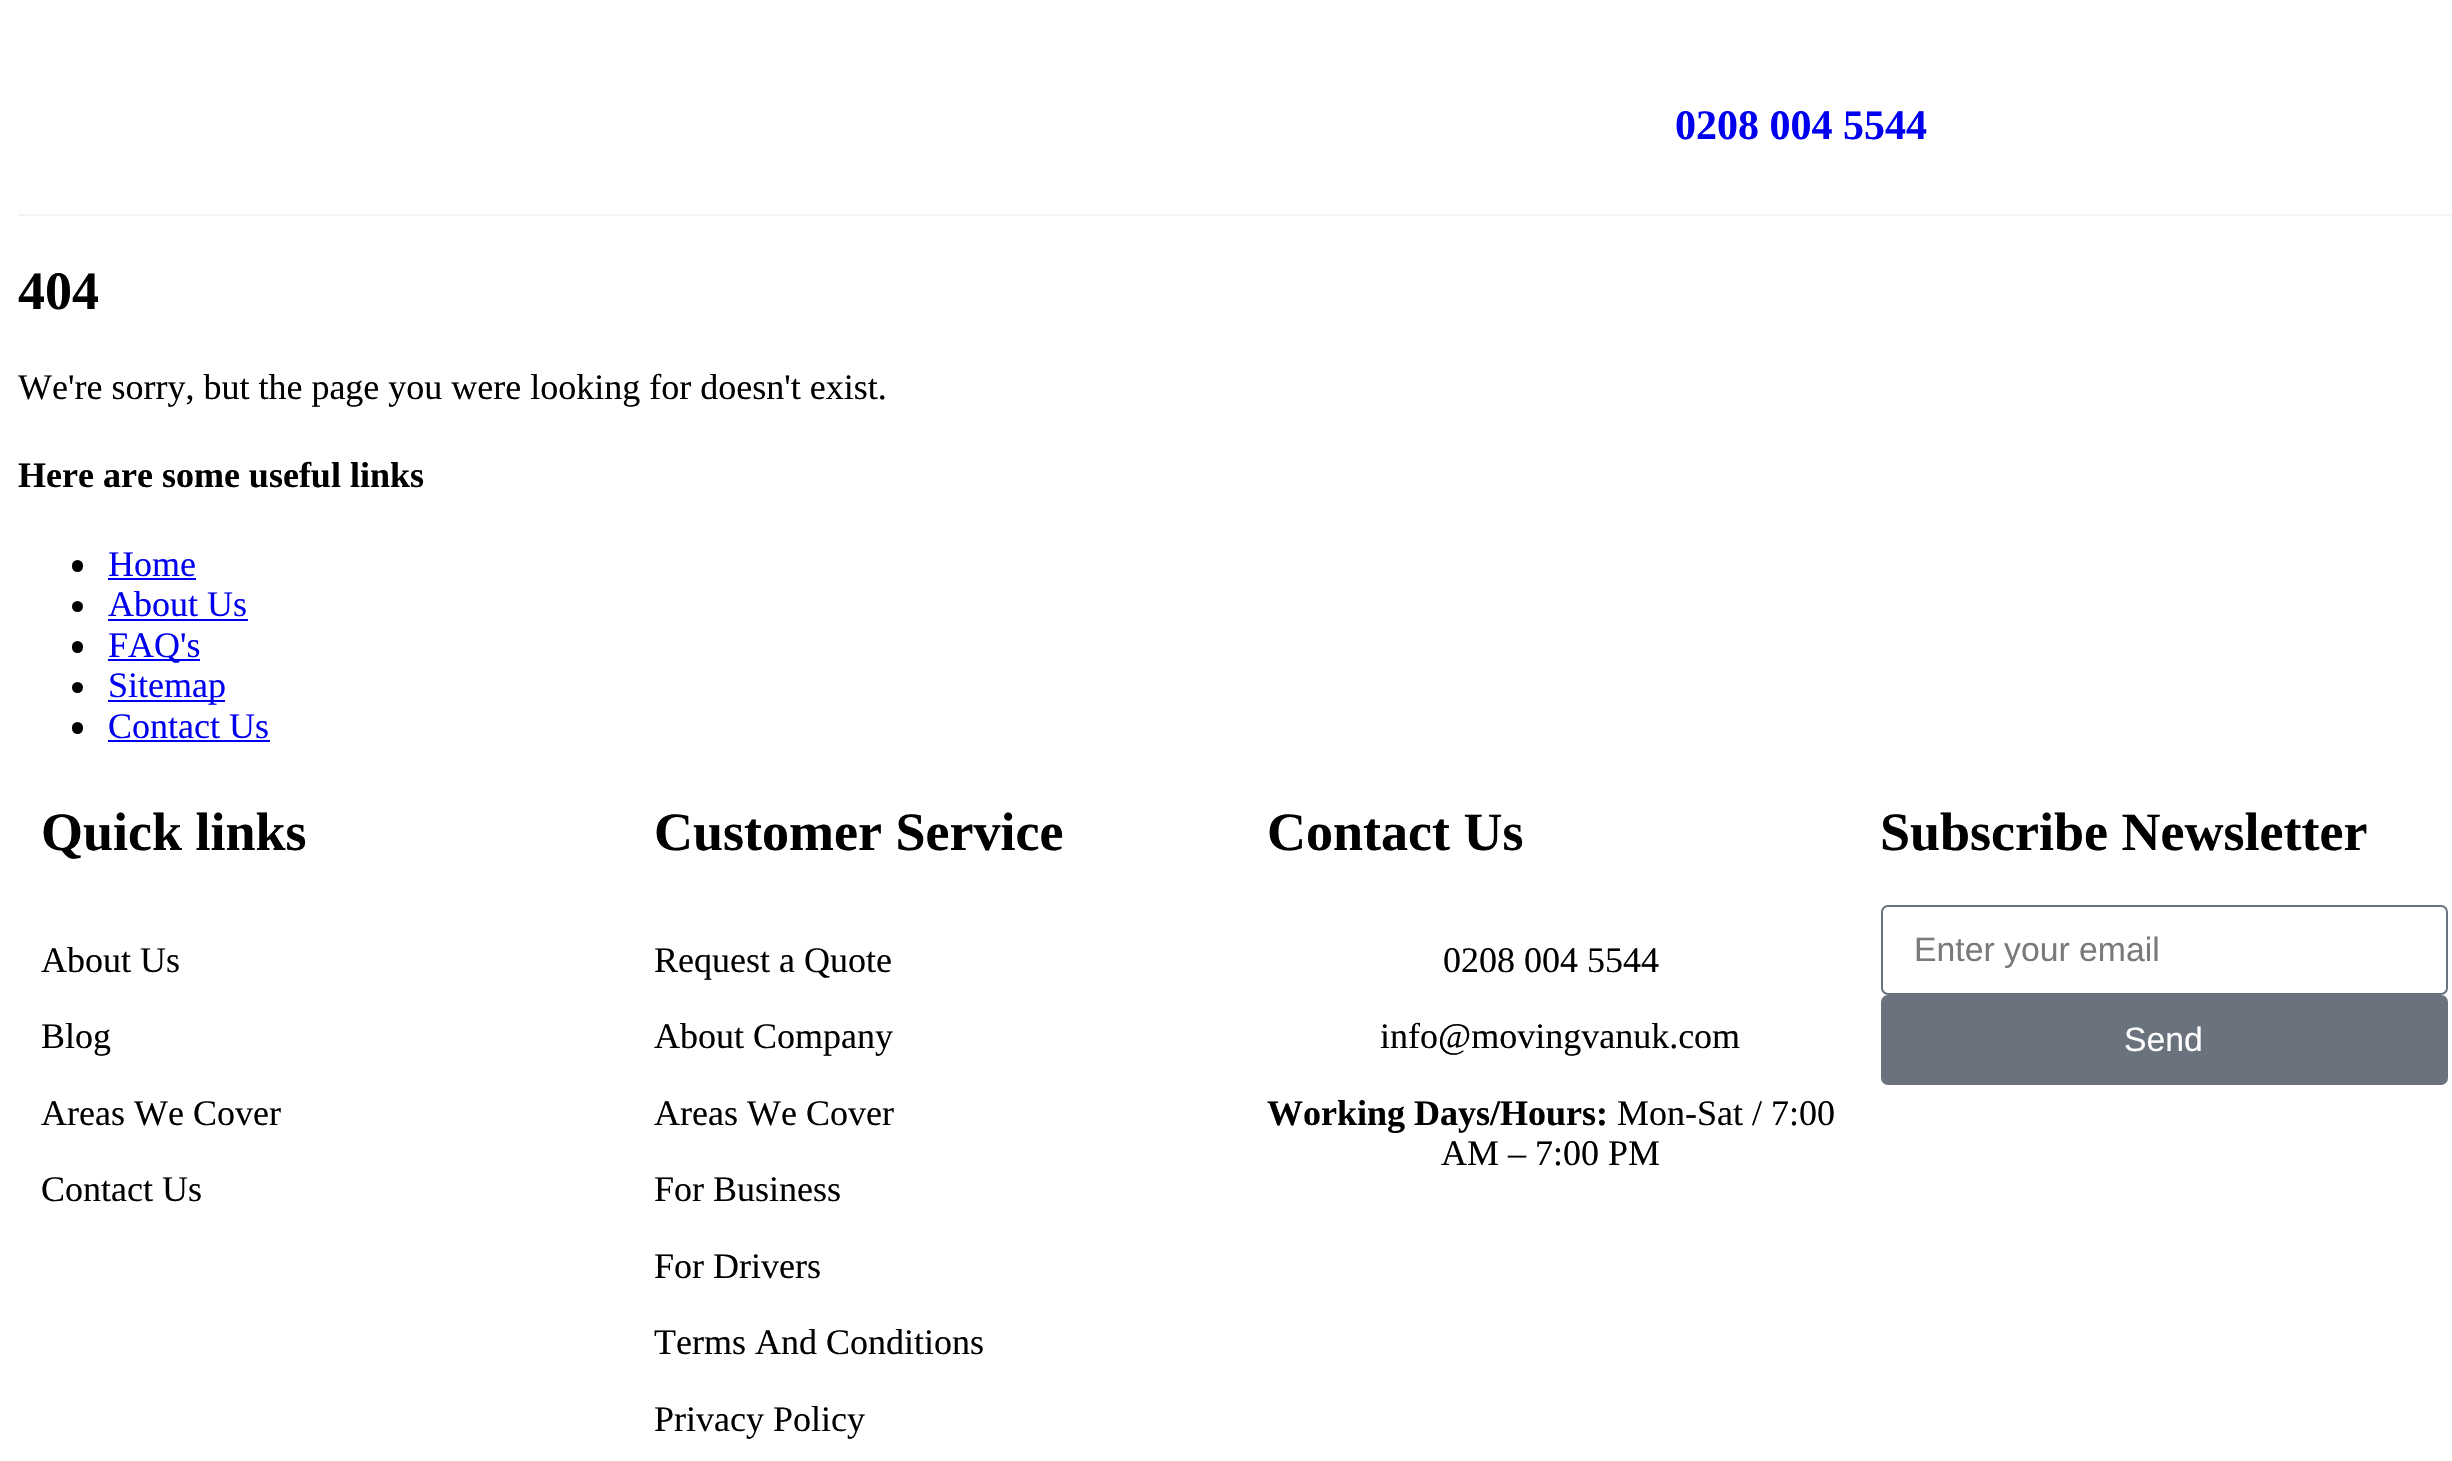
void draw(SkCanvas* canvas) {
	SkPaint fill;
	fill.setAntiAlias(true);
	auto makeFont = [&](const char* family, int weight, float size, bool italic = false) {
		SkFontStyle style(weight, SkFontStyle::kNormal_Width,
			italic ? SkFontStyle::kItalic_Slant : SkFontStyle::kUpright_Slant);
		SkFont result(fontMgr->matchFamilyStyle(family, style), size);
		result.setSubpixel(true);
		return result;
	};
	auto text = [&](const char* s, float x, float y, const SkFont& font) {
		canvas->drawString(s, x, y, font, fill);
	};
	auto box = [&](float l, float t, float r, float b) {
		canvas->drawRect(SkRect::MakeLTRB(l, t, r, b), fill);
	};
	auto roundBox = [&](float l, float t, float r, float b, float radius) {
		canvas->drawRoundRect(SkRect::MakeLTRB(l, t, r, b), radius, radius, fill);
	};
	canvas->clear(0xFFFFFFFF);
	fill.setColor(0xFFF4F4F4);
	box(18, 214, 2452, 216);
	fill.setColor(0xFF000000);
	roundBox(72, 560, 83, 572, 5.5f);
	fill.setColor(0xFF0000EE);
	box(108, 578, 196, 580);
	fill.setColor(0xFF000000);
	canvas->drawCircle(77.5f, 606.5f, 5.5f, fill);
	fill.setColor(0xFF0000EE);
	box(108, 619, 248, 621);
	fill.setColor(0xFF000000);
	roundBox(72, 641, 83, 653, 5.5f);
	fill.setColor(0xFF0000EE);
	box(108, 659, 200, 661);
	fill.setColor(0xFF000000);
	canvas->drawCircle(77.5f, 687.5f, 5.5f, fill);
	fill.setColor(0xFF0000EE);
	box(108, 700, 225, 702);
	fill.setColor(0xFF000000);
	roundBox(72, 722, 83, 734, 5.5f);
	fill.setColor(0xFF0000EE);
	box(108, 740, 270, 742);
	fill.setStyle(SkPaint::kStroke_Style);
	fill.setStrokeWidth(2);
	fill.setColor(0xFF69727D);
	canvas->drawRoundRect(SkRect::MakeLTRB(1882, 906, 2447, 994), 6, 6, fill);
	fill.setStyle(SkPaint::kFill_Style);
	roundBox(1881, 995, 2448, 1085, 7);
	auto font1 = makeFont("Liberation Serif", 700, 42);
	fill.setColor(0xFF0000EE);
	text("0208 004 5544", 1675, 139, font1);
	auto font2 = makeFont("Liberation Serif", 700, 54);
	fill.setColor(0xFF000000);
	text("404", 18, 309, font2);
	auto font3 = makeFont("Liberation Serif", 400, 36);
	text("We're sorry, but the page you were looking for doesn't exist.", 18, 399, font3);
	auto font4 = makeFont("Liberation Serif", 700, 36);
	text("Here are some useful links", 18, 487, font4);
	fill.setColor(0xFF0000EE);
	text("Home", 108, 576, font3);
	text("About Us", 108, 616, font3);
	text("FAQ's", 108, 657, font3);
	text("Sitemap", 108, 697, font3);
	text("Contact Us", 108, 738, font3);
	fill.setColor(0xFF000000);
	text("Quick links", 41, 850, font2);
	text("About Us", 41, 972, font3);
	text("Blog", 41, 1048, font3);
	text("Areas We Cover", 41, 1125, font3);
	text("Contact Us", 41, 1201, font3);
	text("Customer Service", 654, 850, font2);
	text("Request a Quote", 654, 972, font3);
	text("About Company", 654, 1048, font3);
	text("Areas We Cover", 654, 1125, font3);
	text("For Business", 654, 1201, font3);
	text("For Drivers", 654, 1278, font3);
	text("Terms And Conditions", 654, 1354, font3);
	text("Privacy Policy", 654, 1431, font3);
	text("Contact Us", 1267, 850, font2);
	text("0208 004 5544", 1443, 972, font3);
	text("info@movingvanuk.com", 1380, 1048, font3);
	text("Working Days/Hours:", 1267, 1125, font4);
	text("Mon-Sat / 7:00", 1617, 1125, font3);
	text("AM – 7:00 PM", 1441, 1165, font3);
	text("Subscribe Newsletter", 1880, 850, font2);
	auto font5 = makeFont("Liberation Sans", 400, 33.75f);
	fill.setColor(0xFF797A7C);
	text("Enter your email", 1914, 961, font5);
	fill.setColor(0xFFFFFFFF);
	text("Send", 2124, 1051, font5);
}
